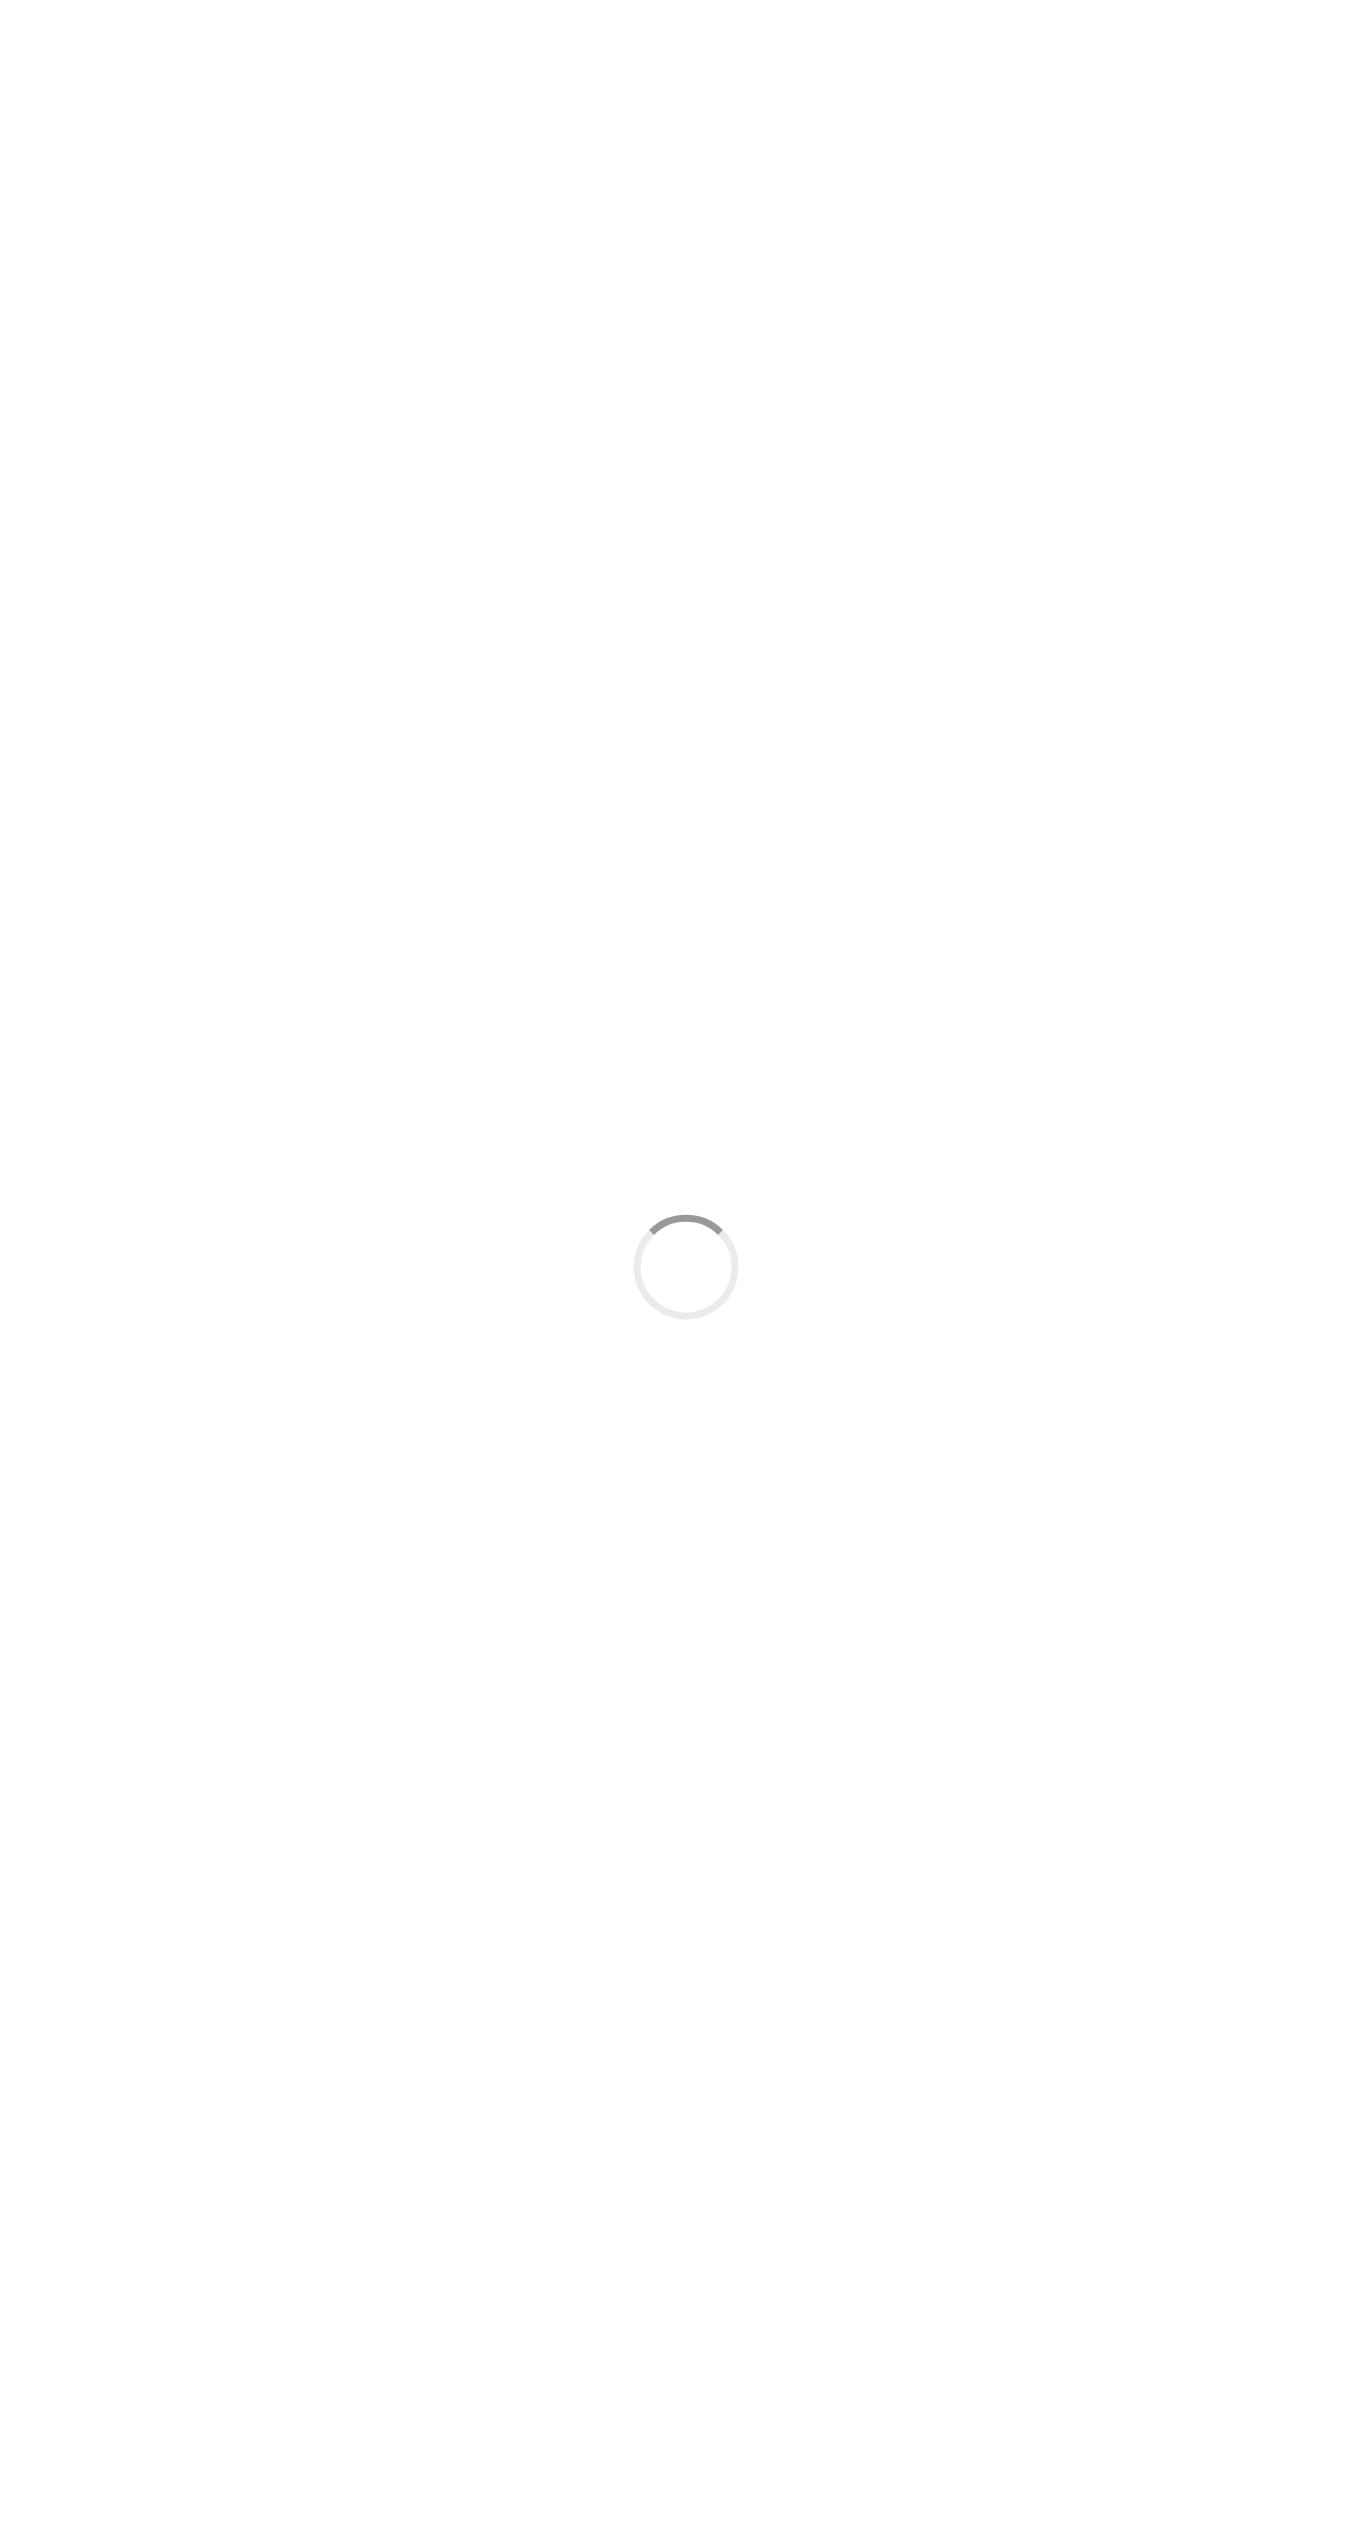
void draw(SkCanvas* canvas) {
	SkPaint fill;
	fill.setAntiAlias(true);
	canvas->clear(0xFFFFFFFF);
	fill.setStyle(SkPaint::kStroke_Style);
	fill.setStrokeWidth(7);
	fill.setColor(0xFF999999);
	canvas->drawPath(SkPathBuilder().moveTo(651.5f, 1232.5f).cubicTo(670, 1213.5f, 702, 1213.5f, 720.5f, 1232.5f).detach(), fill);
	fill.setColor(0x33999999);
	canvas->drawPath(SkPathBuilder().moveTo(720.5f, 1232.5f).cubicTo(730, 1241.5f, 735, 1254, 735, 1267).cubicTo(735, 1310.5f, 682, 1332.5f, 651.5f, 1301.5f).cubicTo(644.5f, 1295, 640, 1286, 638, 1276.5f).cubicTo(635, 1260.5f, 640, 1244, 651.5f, 1232.5f).detach(), fill);
}
